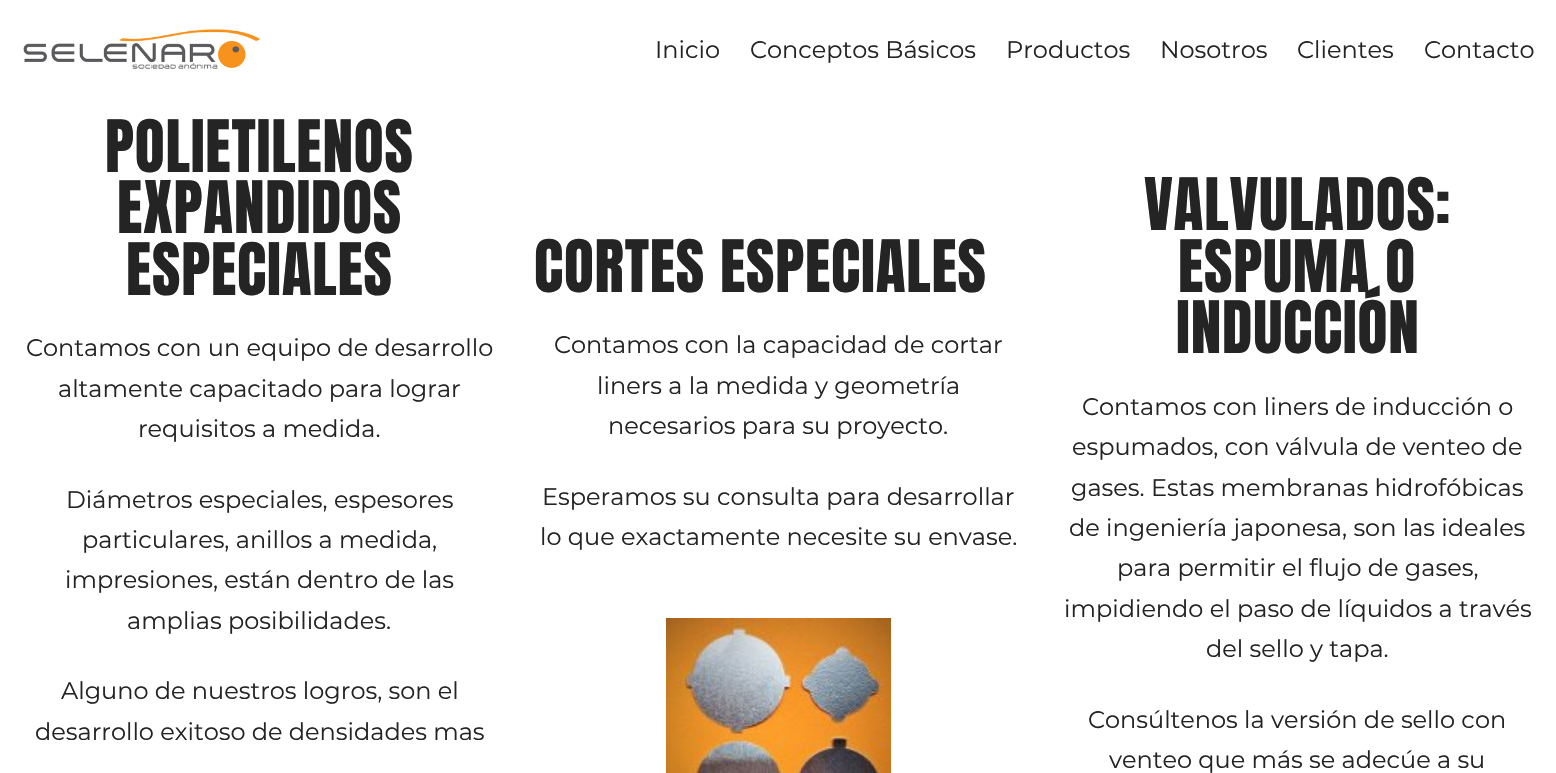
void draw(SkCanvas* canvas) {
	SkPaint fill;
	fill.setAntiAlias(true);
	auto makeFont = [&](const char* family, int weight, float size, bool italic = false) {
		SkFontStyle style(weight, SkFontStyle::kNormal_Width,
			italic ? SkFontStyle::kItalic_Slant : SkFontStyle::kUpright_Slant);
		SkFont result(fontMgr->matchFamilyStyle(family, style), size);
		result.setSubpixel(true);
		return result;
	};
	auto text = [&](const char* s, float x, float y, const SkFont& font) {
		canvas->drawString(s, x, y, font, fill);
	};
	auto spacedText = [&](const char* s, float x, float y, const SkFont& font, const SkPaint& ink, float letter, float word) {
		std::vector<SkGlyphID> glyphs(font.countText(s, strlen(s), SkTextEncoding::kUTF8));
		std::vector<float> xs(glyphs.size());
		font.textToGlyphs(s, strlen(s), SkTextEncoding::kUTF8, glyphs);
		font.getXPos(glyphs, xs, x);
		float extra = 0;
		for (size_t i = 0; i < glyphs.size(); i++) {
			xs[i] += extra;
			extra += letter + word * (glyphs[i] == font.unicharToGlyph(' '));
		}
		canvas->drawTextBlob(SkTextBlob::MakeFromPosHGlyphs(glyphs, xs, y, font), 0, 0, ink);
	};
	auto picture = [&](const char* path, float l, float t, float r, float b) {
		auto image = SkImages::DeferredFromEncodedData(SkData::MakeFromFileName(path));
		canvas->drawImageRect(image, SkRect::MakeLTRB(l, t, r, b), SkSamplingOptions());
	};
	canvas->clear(0xFFFFFFFF);
	picture("image0.png", 23, 29, 260, 69);
	picture("image1.png", 666, 618, 891, 773);
	auto font1 = makeFont("Montserrat", 100, 24);
	fill.setColor(0xFF242424);
	text("Inicio", 655, 58, font1);
	text("Conceptos Básicos", 750, 58, font1);
	text("Productos", 1006, 58, font1);
	text("Nosotros", 1160, 58, font1);
	text("Clientes", 1297, 58, font1);
	text("Contacto", 1424, 58, font1);
	auto font2 = makeFont("Anton", 400, 61.5f);
	spacedText("POLIETILENOS", 105, 172, font2, fill, 0.75f, 0);
	spacedText("EXPANDIDOS", 117, 233, font2, fill, 0.75f, 0);
	spacedText("ESPECIALES", 126, 295, font2, fill, 0.75f, 0);
	text("Contamos con un equipo de desarrollo", 26, 356, font1);
	text("altamente capacitado para lograr", 58, 397, font1);
	text("requisitos a medida.", 138, 437, font1);
	text("Diámetros especiales, espesores", 66, 508, font1);
	text("particulares, anillos a medida,", 82, 548, font1);
	text("impresiones, están dentro de las", 65, 588, font1);
	text("amplias posibilidades.", 127, 629, font1);
	text("Alguno de nuestros logros, son el", 61, 699, font1);
	text("desarrollo exitoso de densidades mas", 35, 740, font1);
	spacedText("CORTES ESPECIALES", 534, 292, font2, fill, 0.75f, 0);
	text("Contamos con la capacidad de cortar", 554, 353, font1);
	text("liners a la medida y geometría", 597, 394, font1);
	text("necesarios para su proyecto.", 608, 434, font1);
	text("Esperamos su consulta para desarrollar", 542, 505, font1);
	text("lo que exactamente necesite su envase.", 540, 545, font1);
	spacedText("VALVULADOS:", 1144, 230, font2, fill, 0.75f, 0);
	spacedText("ESPUMA O", 1178, 292, font2, fill, 0.75f, 0);
	spacedText("INDUCCIÓN", 1176, 353, font2, fill, 0.75f, 0);
	text("Contamos con liners de inducción o", 1082, 415, font1);
	text("espumados, con válvula de venteo de", 1072, 455, font1);
	text("gases. Estas membranas hidrofóbicas", 1071, 496, font1);
	text("de ingeniería japonesa, son las ideales", 1069, 536, font1);
	text("para permitir el flujo de gases,", 1117, 576, font1);
	text("impidiendo el paso de líquidos a través", 1064, 617, font1);
	text("del sello y tapa.", 1206, 657, font1);
	text("Consúltenos la versión de sello con", 1088, 728, font1);
	text("venteo que más se adecúe a su", 1109, 768, font1);
}
